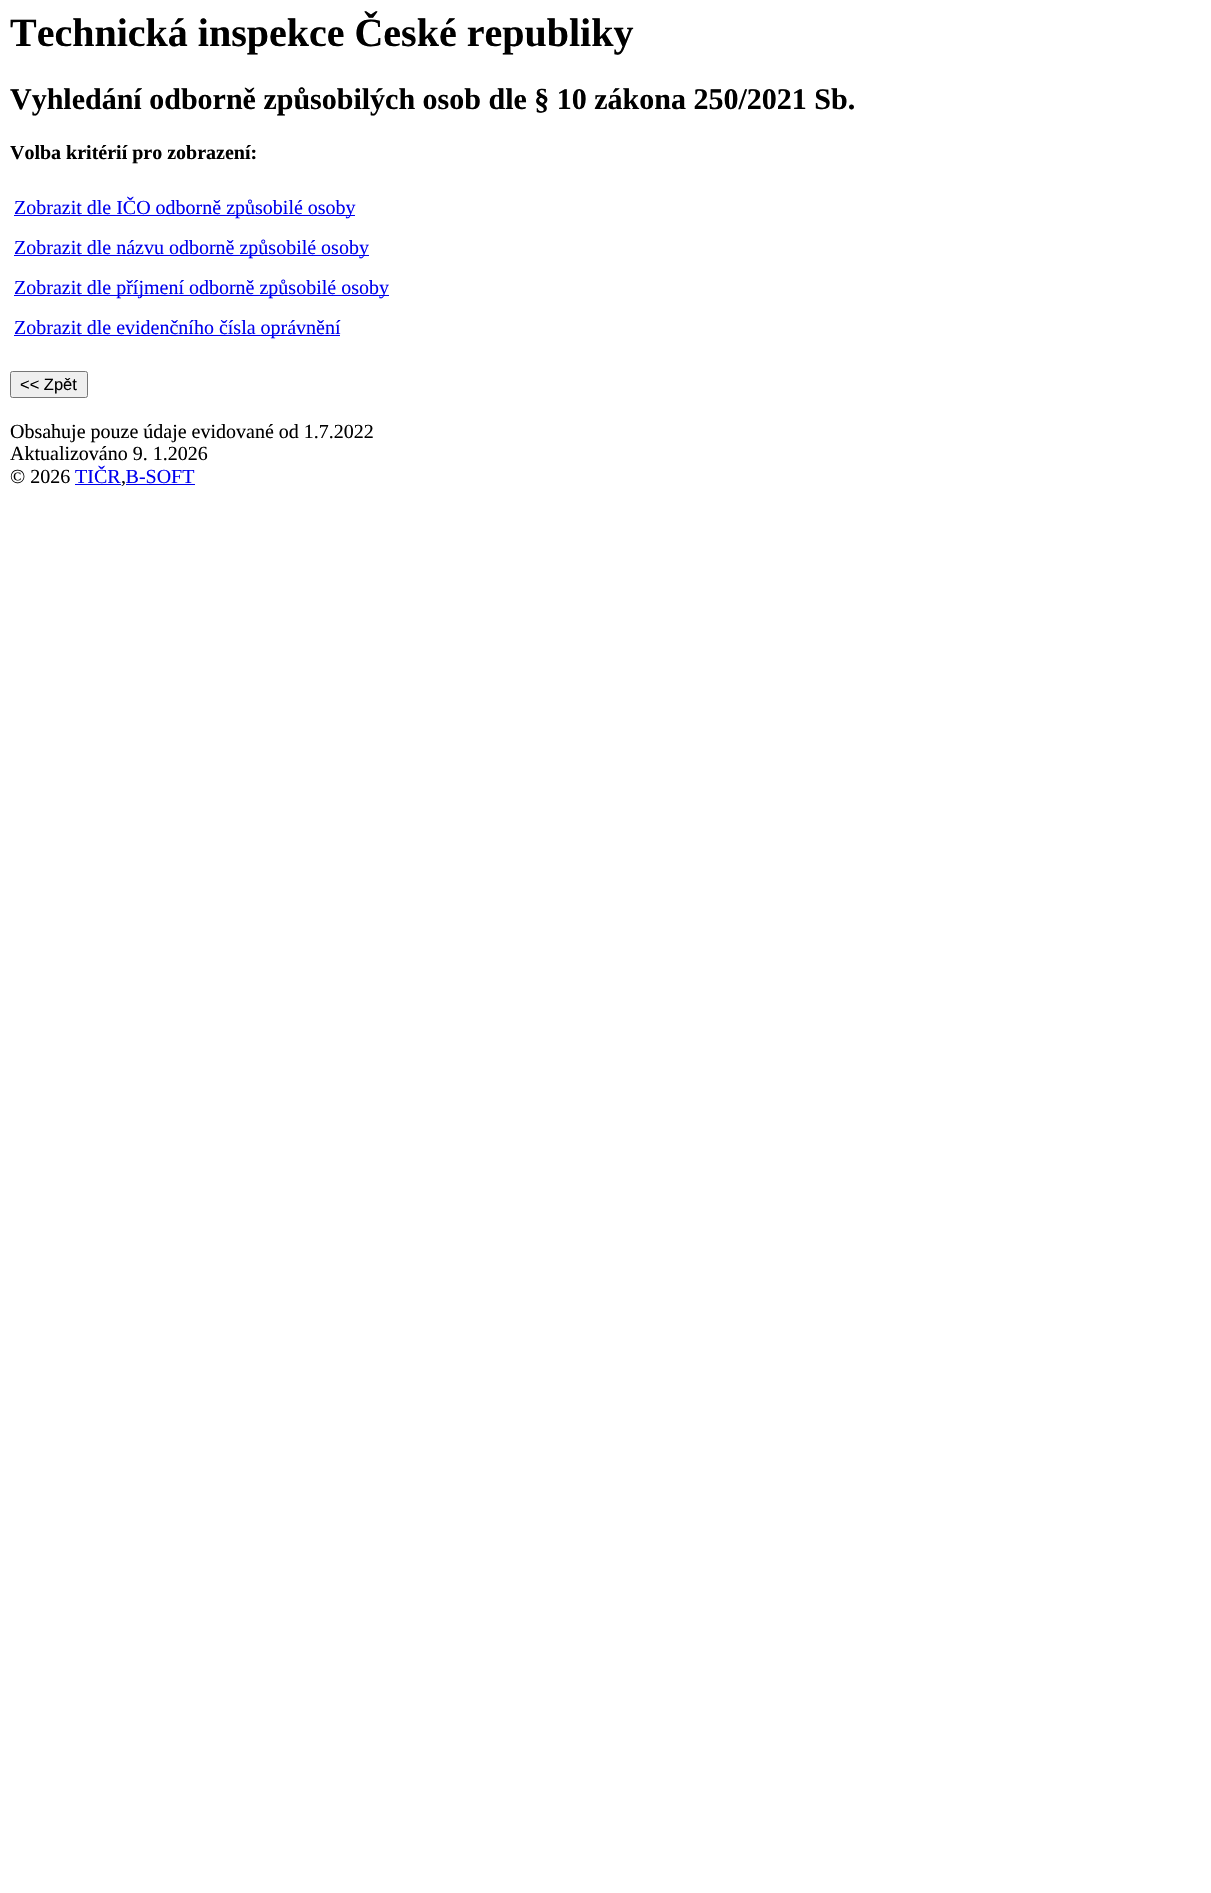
void draw(SkCanvas* canvas) {
	SkPaint fill;
	fill.setAntiAlias(true);
	auto makeFont = [&](const char* family, int weight, float size, bool italic = false) {
		SkFontStyle style(weight, SkFontStyle::kNormal_Width,
			italic ? SkFontStyle::kItalic_Slant : SkFontStyle::kUpright_Slant);
		SkFont result(fontMgr->matchFamilyStyle(family, style), size);
		result.setSubpixel(true);
		return result;
	};
	auto text = [&](const char* s, float x, float y, const SkFont& font) {
		canvas->drawString(s, x, y, font, fill);
	};
	auto box = [&](float l, float t, float r, float b) {
		canvas->drawRect(SkRect::MakeLTRB(l, t, r, b), fill);
	};
	canvas->clear(0xFFFFFFFF);
	fill.setColor(0xFF0000EE);
	box(14, 215, 355, 216);
	box(14, 255, 369, 256);
	box(14, 295, 389, 296);
	box(14, 335, 340, 336);
	fill.setColor(0xFFEFEFEF);
	canvas->drawRoundRect(SkRect::MakeLTRB(10.5f, 371.5f, 87.5f, 397.5f), 2, 2, fill);
	fill.setStyle(SkPaint::kStroke_Style);
	fill.setStrokeWidth(1);
	fill.setColor(0xFF767676);
	canvas->drawRoundRect(SkRect::MakeLTRB(10.5f, 371.5f, 87.5f, 397.5f), 2, 2, fill);
	fill.setStyle(SkPaint::kFill_Style);
	fill.setColor(0xFF0000EE);
	box(75, 484, 121, 485);
	box(126, 484, 195, 485);
	auto font1 = makeFont("Liberation Serif", 700, 40);
	fill.setColor(0xFF000000);
	text("Technická inspekce České republiky", 10, 46, font1);
	auto font2 = makeFont("Liberation Serif", 700, 30);
	text("Vyhledání odborně způsobilých osob dle § 10 zákona 250/2021 Sb.", 10, 109, font2);
	auto font3 = makeFont("Liberation Serif", 700, 20);
	text("Volba kritérií pro zobrazení:", 10, 159, font3);
	auto font4 = makeFont("Liberation Serif", 400, 20);
	fill.setColor(0xFF0000EE);
	text("Zobrazit dle IČO odborně způsobilé osoby", 14, 214, font4);
	text("Zobrazit dle názvu odborně způsobilé osoby", 14, 254, font4);
	text("Zobrazit dle příjmení odborně způsobilé osoby", 14, 294, font4);
	text("Zobrazit dle evidenčního čísla oprávnění", 14, 334, font4);
	auto font5 = makeFont("Liberation Sans", 400, 16.5f);
	fill.setColor(0xFF000000);
	text("<< Zpět", 20, 390, font5);
	text("Obsahuje pouze údaje evidované od 1.7.2022", 10, 438, font4);
	text("Aktualizováno 9. 1.2026", 10, 460, font4);
	text("© 2026", 10, 483, font4);
	fill.setColor(0xFF0000EE);
	text("TIČR B-SOFT", 75, 483, font4);
	fill.setColor(0xFF000000);
	text(",", 121, 483, font4);
}
